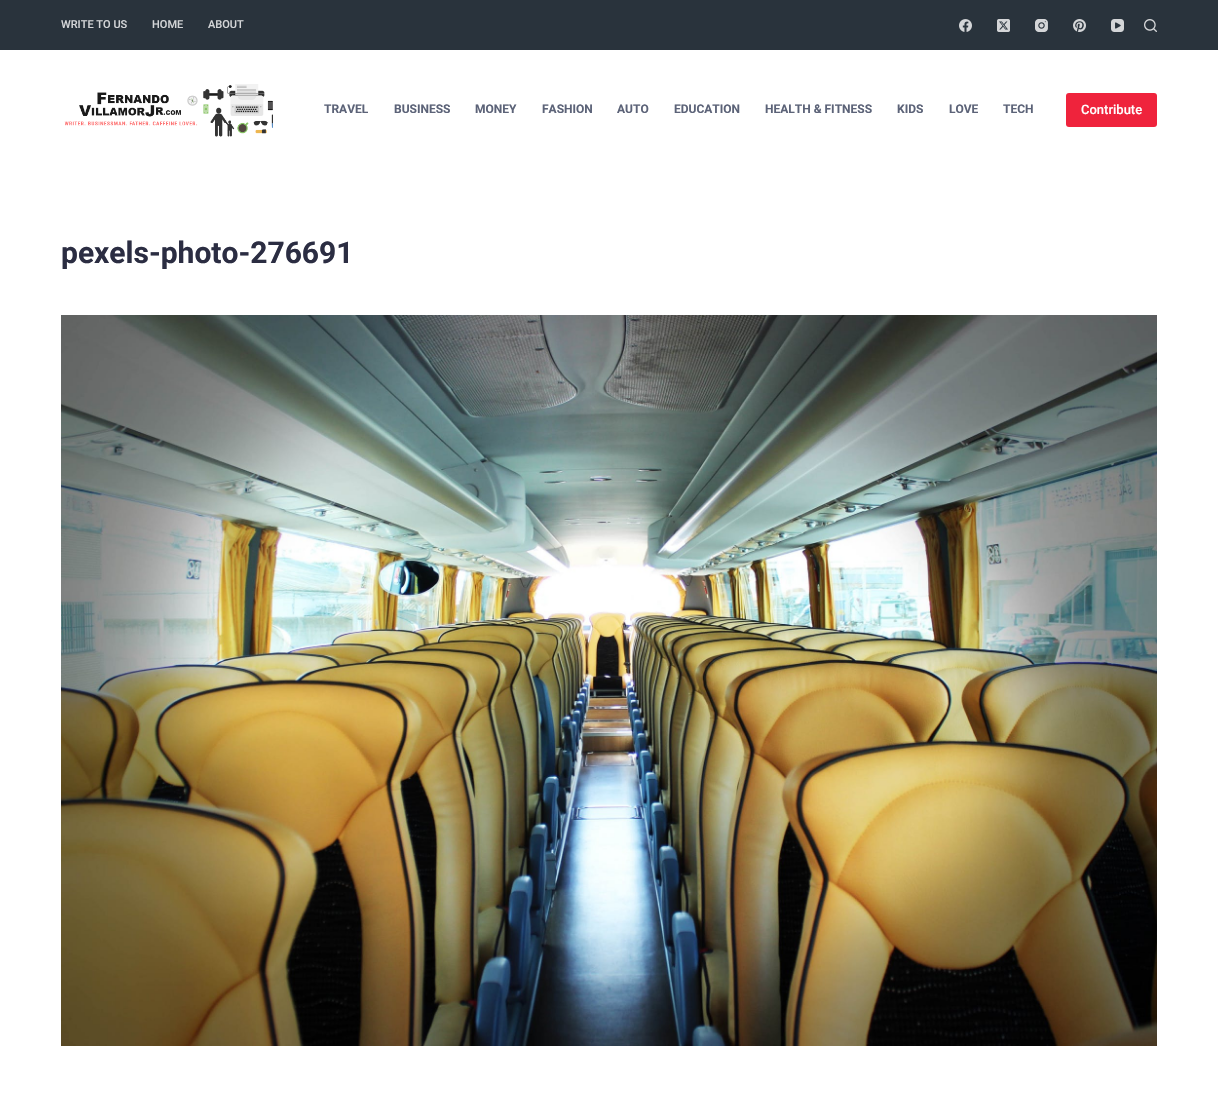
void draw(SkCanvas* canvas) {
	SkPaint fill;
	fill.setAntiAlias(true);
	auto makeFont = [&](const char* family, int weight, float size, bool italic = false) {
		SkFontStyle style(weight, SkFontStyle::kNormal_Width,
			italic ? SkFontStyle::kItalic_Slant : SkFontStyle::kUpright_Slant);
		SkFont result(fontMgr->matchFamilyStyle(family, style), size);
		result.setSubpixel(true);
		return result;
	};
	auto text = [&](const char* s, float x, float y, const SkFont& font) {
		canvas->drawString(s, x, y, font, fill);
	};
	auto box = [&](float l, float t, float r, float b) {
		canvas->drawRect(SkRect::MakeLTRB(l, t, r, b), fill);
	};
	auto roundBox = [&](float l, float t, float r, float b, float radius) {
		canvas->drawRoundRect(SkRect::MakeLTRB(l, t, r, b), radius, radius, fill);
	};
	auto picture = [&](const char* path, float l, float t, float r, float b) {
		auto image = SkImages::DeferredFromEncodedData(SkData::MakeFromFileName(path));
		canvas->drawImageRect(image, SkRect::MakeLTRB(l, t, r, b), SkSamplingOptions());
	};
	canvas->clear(0xFFFFFFFF);
	fill.setColor(0xFF29333C);
	box(0, 0, 1218, 50);
	picture("image0.png", 959, 19, 972, 32);
	picture("image1.png", 997, 19, 1010, 32);
	picture("image2.png", 1035, 19, 1048, 32);
	picture("image3.png", 1073, 19, 1086, 32);
	picture("image4.png", 1111, 19, 1124, 32);
	picture("image5.png", 1144, 19, 1157, 32);
	picture("image6.png", 64, 84, 273, 137);
	fill.setColor(0xFFEF233C);
	roundBox(1066, 93, 1157, 127, 3);
	picture("image7.png", 61, 315, 1157, 1046);
	auto font1 = makeFont("Roboto", 500, 11);
	fill.setColor(0xFFD4D6D8);
	text("WRITE TO US", 61, 28, font1);
	text("HOME", 152, 28, font1);
	text("ABOUT", 208, 28, font1);
	auto font2 = makeFont("Roboto", 700, 12);
	fill.setColor(0xFF5C6378);
	text("TRAVEL", 324, 113, font2);
	text("BUSINESS", 394, 113, font2);
	text("MONEY", 475, 113, font2);
	text("FASHION", 542, 113, font2);
	text("AUTO", 617, 113, font2);
	text("EDUCATION", 674, 113, font2);
	text("HEALTH & FITNESS", 765, 113, font2);
	text("KIDS", 897, 113, font2);
	text("LOVE", 949, 113, font2);
	text("TECH", 1003, 113, font2);
	auto font3 = makeFont("Roboto", 500, 13);
	fill.setColor(0xFFFFFFFF);
	text("Contribute", 1081, 114, font3);
	auto font4 = makeFont("Roboto", 700, 30);
	fill.setColor(0xFF2B2D42);
	text("pexels-photo-276691", 61, 263, font4);
}
